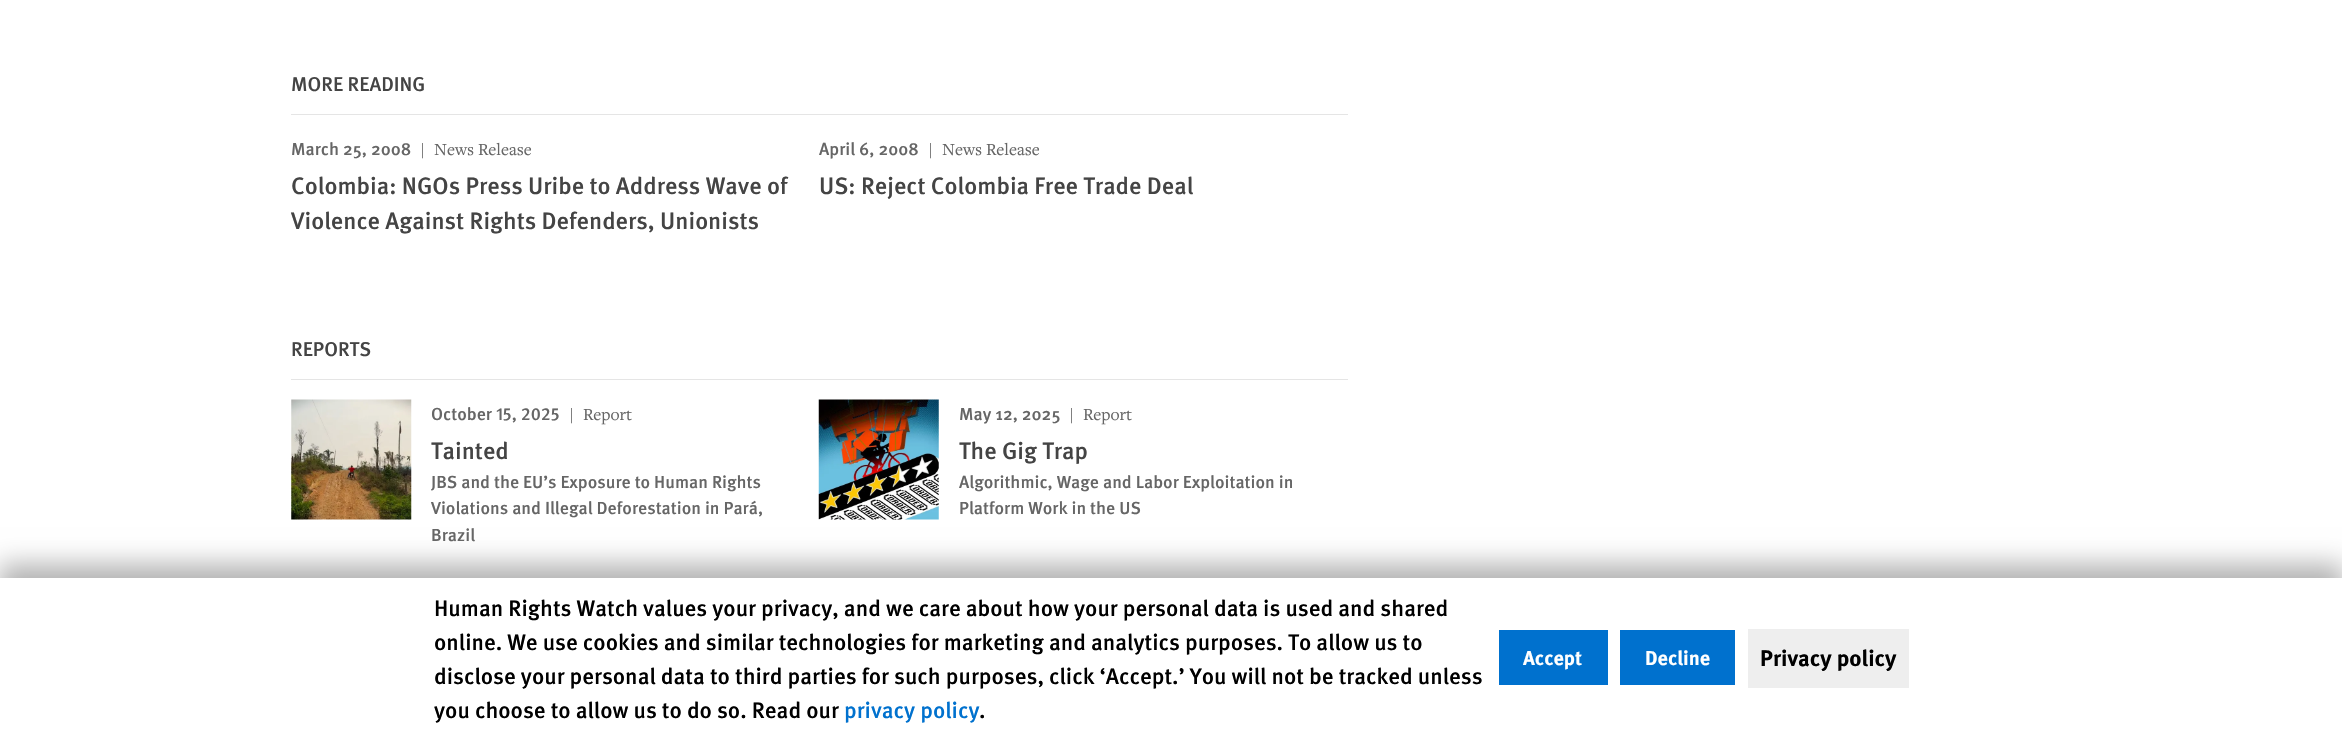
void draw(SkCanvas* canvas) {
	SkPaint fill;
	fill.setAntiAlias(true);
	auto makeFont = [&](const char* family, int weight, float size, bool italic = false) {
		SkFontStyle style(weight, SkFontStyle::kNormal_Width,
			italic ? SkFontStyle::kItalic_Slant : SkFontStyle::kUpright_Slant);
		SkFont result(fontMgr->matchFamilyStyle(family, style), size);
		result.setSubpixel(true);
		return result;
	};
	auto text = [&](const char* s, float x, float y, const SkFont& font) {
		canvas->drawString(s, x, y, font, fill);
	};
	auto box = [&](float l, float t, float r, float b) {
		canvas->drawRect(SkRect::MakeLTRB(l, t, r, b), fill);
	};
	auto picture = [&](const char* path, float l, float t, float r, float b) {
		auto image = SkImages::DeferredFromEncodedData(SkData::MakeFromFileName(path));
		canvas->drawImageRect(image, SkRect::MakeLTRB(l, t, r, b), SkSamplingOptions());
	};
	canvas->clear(0xFFFFFFFF);
	fill.setColor(0xFFE5E5E5);
	box(291, 114, 1348, 115);
	box(291, 379, 1348, 380);
	picture("image0.png", 291, 399, 412, 520);
	picture("image1.png", 818, 399, 939, 520);
	fill.setColor(0x4D000000);
	fill.setMaskFilter(SkMaskFilter::MakeBlur(kNormal_SkBlurStyle, 12.5f));
	canvas->drawRect(SkRect::MakeLTRB(-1, 564, 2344, 726), fill);
	fill.setMaskFilter(nullptr);
	fill.setColor(0xFFFFFFFF);
	box(0, 578, 2342, 737);
	fill.setColor(0xFF0071CE);
	box(1499, 630, 1608, 685);
	box(1620, 630, 1735, 685);
	fill.setColor(0xFFEEEEEE);
	box(1748, 629, 1909, 688);
	auto font1 = makeFont("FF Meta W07", 500, 20);
	fill.setColor(0xFF444444);
	text("MORE READING", 291, 91, font1);
	auto font2 = makeFont("FF Meta W07", 500, 17.5f);
	fill.setColor(0xFF666666);
	text("March 25, 2008", 291, 155, font2);
	auto font3 = makeFont("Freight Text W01", 400, 17.5f);
	text("|", 420, 155, font3);
	text("News Release", 434, 155, font3);
	auto font4 = makeFont("FF Meta W07", 500, 23.75f);
	fill.setColor(0xFF444444);
	text("Colombia: NGOs Press Uribe to Address Wave of", 291, 194, font4);
	text("Violence Against Rights Defenders, Unionists", 291, 229, font4);
	fill.setColor(0xFF666666);
	text("April 6, 2008", 819, 155, font2);
	text("|", 928, 155, font3);
	text("News Release", 942, 155, font3);
	fill.setColor(0xFF444444);
	text("US: Reject Colombia Free Trade Deal", 819, 194, font4);
	text("REPORTS", 291, 356, font1);
	auto font5 = makeFont("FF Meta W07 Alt", 500, 17.5f);
	fill.setColor(0xFF666666);
	text("October 15, 2025", 431, 420, font5);
	text("|", 569, 420, font3);
	text("Report", 583, 420, font3);
	fill.setColor(0xFF444444);
	text("Tainted", 431, 459, font4);
	fill.setColor(0xFF666666);
	text("JBS and the EU’s Exposure to Human Rights", 431, 488, font2);
	text("Violations and Illegal Deforestation in Pará,", 431, 514, font2);
	text("Brazil", 431, 541, font2);
	text("May 12, 2025", 959, 420, font2);
	text("|", 1069, 420, font3);
	text("Report", 1083, 420, font3);
	fill.setColor(0xFF444444);
	text("The Gig Trap", 959, 459, font4);
	fill.setColor(0xFF666666);
	text("Algorithmic, Wage and Labor Exploitation in", 959, 488, font2);
	text("Platform Work in the US", 959, 514, font2);
	auto font6 = makeFont("FF Meta W07", 500, 22.5f);
	fill.setColor(0xFF000000);
	text("Human Rights Watch values your privacy, and we care about how your personal data is used and shared", 434, 616, font6);
	text("online. We use cookies and similar technologies for marketing and analytics purposes. To allow us to", 434, 650, font6);
	text("disclose your personal data to third parties for such purposes, click ‘Accept.’ You will not be tracked unless", 434, 684, font6);
	text("you choose to allow us to do so. Read our", 434, 718, font6);
	fill.setColor(0xFF0071CE);
	text("privacy policy", 844, 718, font6);
	fill.setColor(0xFF000000);
	text(".", 979, 718, font6);
	auto font7 = makeFont("FF Meta W07", 700, 20);
	fill.setColor(0xFFFFFFFF);
	text("Accept", 1523, 665, font7);
	text("Decline", 1645, 665, font7);
	auto font8 = makeFont("FF Meta W07", 700, 22.5f);
	fill.setColor(0xFF000000);
	text("Privacy policy", 1760, 666, font8);
}
